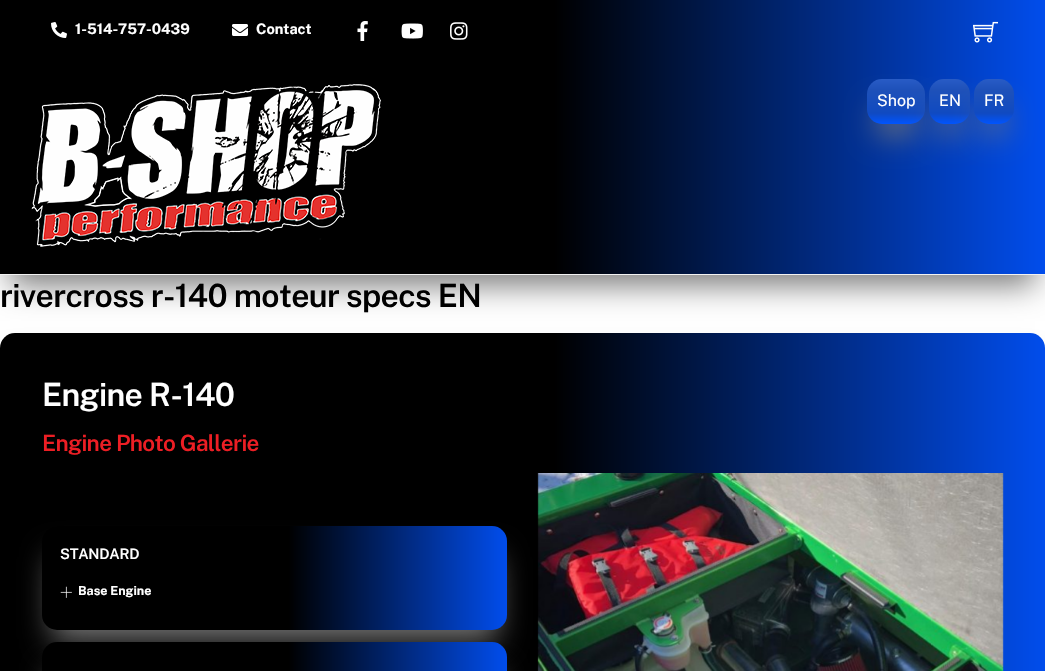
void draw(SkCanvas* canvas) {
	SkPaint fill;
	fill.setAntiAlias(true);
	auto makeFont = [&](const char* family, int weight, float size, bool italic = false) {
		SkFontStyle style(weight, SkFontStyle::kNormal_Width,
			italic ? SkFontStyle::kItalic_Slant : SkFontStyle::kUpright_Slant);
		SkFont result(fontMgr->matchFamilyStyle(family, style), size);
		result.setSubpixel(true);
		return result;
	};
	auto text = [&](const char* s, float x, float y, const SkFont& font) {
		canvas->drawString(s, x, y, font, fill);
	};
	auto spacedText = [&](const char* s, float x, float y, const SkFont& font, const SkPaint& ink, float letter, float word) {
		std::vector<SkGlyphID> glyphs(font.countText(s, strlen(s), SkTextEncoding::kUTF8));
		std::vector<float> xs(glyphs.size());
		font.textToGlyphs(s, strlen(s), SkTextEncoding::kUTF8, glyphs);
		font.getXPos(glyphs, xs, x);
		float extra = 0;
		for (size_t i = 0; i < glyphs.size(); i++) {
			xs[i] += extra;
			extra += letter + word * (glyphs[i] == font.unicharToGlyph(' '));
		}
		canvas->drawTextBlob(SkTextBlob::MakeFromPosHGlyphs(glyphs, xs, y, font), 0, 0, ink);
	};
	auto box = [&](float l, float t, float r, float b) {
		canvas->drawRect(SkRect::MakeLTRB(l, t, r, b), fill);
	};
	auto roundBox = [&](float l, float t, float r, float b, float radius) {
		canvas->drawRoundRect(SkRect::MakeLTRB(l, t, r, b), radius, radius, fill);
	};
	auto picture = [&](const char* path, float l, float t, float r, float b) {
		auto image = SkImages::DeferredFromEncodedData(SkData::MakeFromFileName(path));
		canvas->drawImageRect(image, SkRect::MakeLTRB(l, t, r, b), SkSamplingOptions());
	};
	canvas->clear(0xFFFFFFFF);
	fill.setColor(0xFF777777);
	fill.setMaskFilter(SkMaskFilter::MakeBlur(kNormal_SkBlurStyle, 15));
	canvas->drawRect(SkRect::MakeLTRB(10, 30, 1035, 285), fill);
	fill.setMaskFilter(nullptr);
	{
		const SkColor colors[] = {0xFF000000, 0xFF014DEC};
		const float stops[] = {0.53f, 1};
		const SkPoint ends[] = {{0, 137}, {1045, 137}};
		fill.setShader(SkGradientShader::MakeLinear(ends, colors, stops, 2, SkTileMode::kClamp));
		fill.setAlpha(255);
	}
	box(0, 0, 1045, 274);
	fill.setShader(nullptr);
	fill.setColor(0xFFF2F2F2);
	box(0, 274, 1045, 275);
	picture("image0.png", 51, 22, 67, 38);
	picture("image1.png", 232, 24, 248, 36);
	picture("image2.png", 357, 21, 368, 41);
	picture("image3.png", 401, 23, 423, 39);
	picture("image4.png", 450, 22, 468, 40);
	picture("image5.png", 973, 21, 998, 43);
	picture("image6.png", 31, 84, 381, 247);
	fill.setColor(0xFF777777);
	fill.setMaskFilter(SkMaskFilter::MakeBlur(kNormal_SkBlurStyle, 15));
	canvas->drawRoundRect(SkRect::MakeLTRB(877, 109, 915, 134), 5, 5, fill);
	fill.setMaskFilter(nullptr);
	{
		const SkColor colors[] = {0xFF285CC6, 0xFF1E51B9, 0xFF104AC1, 0xFF0054FF};
		const float stops[] = {0, 0.24f, 0.76f, 1};
		const SkPoint ends[] = {{896, 79}, {896, 124}};
		fill.setShader(SkGradientShader::MakeLinear(ends, colors, stops, 4, SkTileMode::kClamp));
		fill.setAlpha(255);
	}
	roundBox(867, 79, 925, 124, 15);
	fill.setShader(nullptr);
	fill.setColor(0xFF777777);
	fill.setMaskFilter(SkMaskFilter::MakeBlur(kNormal_SkBlurStyle, 15));
	canvas->drawRoundRect(SkRect::MakeLTRB(939, 109, 960, 134), 5, 5, fill);
	fill.setMaskFilter(nullptr);
	{
		const SkColor colors[] = {0xFF285CC6, 0xFF1E51B9, 0xFF104AC1, 0xFF0054FF};
		const float stops[] = {0, 0.24f, 0.76f, 1};
		const SkPoint ends[] = {{950, 79}, {950, 124}};
		fill.setShader(SkGradientShader::MakeLinear(ends, colors, stops, 4, SkTileMode::kClamp));
		fill.setAlpha(255);
	}
	roundBox(929, 79, 970, 124, 15);
	fill.setShader(nullptr);
	fill.setColor(0xFF777777);
	fill.setMaskFilter(SkMaskFilter::MakeBlur(kNormal_SkBlurStyle, 15));
	canvas->drawRoundRect(SkRect::MakeLTRB(984, 109, 1004, 134), 5, 5, fill);
	fill.setMaskFilter(nullptr);
	{
		const SkColor colors[] = {0xFF285CC6, 0xFF1E51B9, 0xFF104AC1, 0xFF0054FF};
		const float stops[] = {0, 0.24f, 0.76f, 1};
		const SkPoint ends[] = {{994, 79}, {994, 124}};
		fill.setShader(SkGradientShader::MakeLinear(ends, colors, stops, 4, SkTileMode::kClamp));
		fill.setAlpha(255);
	}
	roundBox(974, 79, 1014, 124, 15);
	fill.setShader(nullptr);
	fill.setColor(0xFF777777);
	fill.setMaskFilter(SkMaskFilter::MakeBlur(kNormal_SkBlurStyle, 15));
	canvas->drawRoundRect(SkRect::MakeLTRB(10, 363, 1035, 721), 5, 5, fill);
	fill.setMaskFilter(nullptr);
	{
		const SkColor colors[] = {0xFF000000, 0xFF014DEC};
		const float stops[] = {0.53f, 1};
		const SkPoint ends[] = {{0, 669}, {1045, 669}};
		fill.setShader(SkGradientShader::MakeLinear(ends, colors, stops, 2, SkTileMode::kClamp));
		fill.setAlpha(255);
	}
	roundBox(0, 333, 1045, 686, 15);
	fill.setShader(nullptr);
	fill.setColor(0xFF777777);
	fill.setMaskFilter(SkMaskFilter::MakeBlur(kNormal_SkBlurStyle, 15));
	canvas->drawRoundRect(SkRect::MakeLTRB(52, 556, 497, 640), 5, 5, fill);
	fill.setMaskFilter(nullptr);
	{
		const SkColor colors[] = {0xFF000000, 0xFF014DEC};
		const float stops[] = {0.53f, 1};
		const SkPoint ends[] = {{42, 578}, {507, 578}};
		fill.setShader(SkGradientShader::MakeLinear(ends, colors, stops, 2, SkTileMode::kClamp));
		fill.setAlpha(255);
	}
	roundBox(42, 526, 507, 630, 15);
	picture("image7.png", 60, 586, 72, 598);
	fill.setShader(nullptr);
	fill.setColor(0xFF777777);
	fill.setMaskFilter(SkMaskFilter::MakeBlur(kNormal_SkBlurStyle, 15));
	canvas->drawRoundRect(SkRect::MakeLTRB(52, 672, 497, 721), 5, 5, fill);
	fill.setMaskFilter(nullptr);
	{
		const SkColor colors[] = {0xFF000000, 0xFF014DEC};
		const float stops[] = {0.53f, 1};
		const SkPoint ends[] = {{42, 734}, {507, 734}};
		fill.setShader(SkGradientShader::MakeLinear(ends, colors, stops, 2, SkTileMode::kClamp));
		fill.setAlpha(255);
	}
	roundBox(42, 642, 507, 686, 15);
	picture("image8.png", 537, 473, 1004, 671);
	auto font1 = makeFont("Public Sans", 700, 14.5f);
	fill.setShader(nullptr);
	fill.setColor(0xFFFFFFFF);
	text("1-514-757-0439", 75, 34, font1);
	text("Contact", 256, 34, font1);
	auto font2 = makeFont("Public Sans", 400, 16);
	text("Shop", 877, 106, font2);
	text("EN", 939, 106, font2);
	text("FR", 984, 106, font2);
	auto font3 = makeFont("Public Sans", 600, 32);
	fill.setColor(0xFF000000);
	spacedText("rivercross r-140 moteur specs EN", 0, 307, font3, fill, -0.65f, 0);
	fill.setColor(0xFFFFFFFF);
	spacedText("Engine R-140", 42, 406, font3, fill, -0.65f, 0);
	auto font4 = makeFont("Public Sans", 600, 22.5f);
	fill.setColor(0xFFED1E24);
	spacedText("Engine Photo Gallerie", 42, 451, font4, fill, -0.65f, 0);
	auto font5 = makeFont("Public Sans", 600, 14.5f);
	fill.setColor(0xFFFFFFFF);
	spacedText("STANDARD", 60, 559, font5, fill, -0.25f, 0);
	auto font6 = makeFont("Public Sans", 700, 12.5f);
	text("Base Engine", 78, 595, font6);
}
